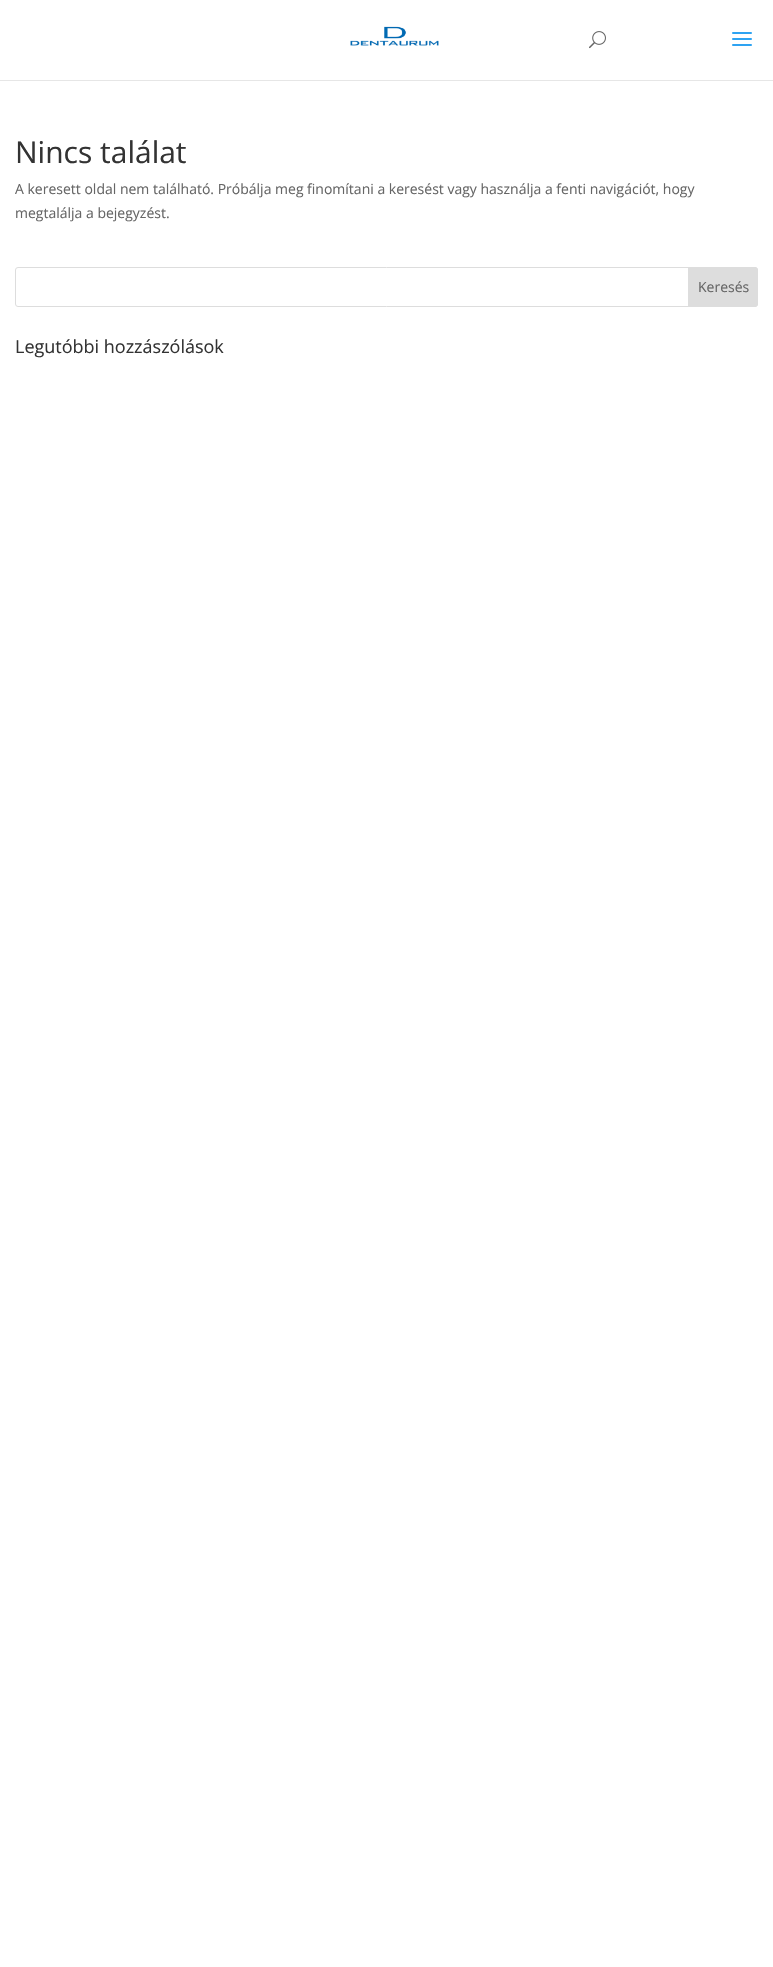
void draw(SkCanvas* canvas) {
	SkPaint fill;
	fill.setAntiAlias(true);
	auto makeFont = [&](const char* family, int weight, float size, bool italic = false) {
		SkFontStyle style(weight, SkFontStyle::kNormal_Width,
			italic ? SkFontStyle::kItalic_Slant : SkFontStyle::kUpright_Slant);
		SkFont result(fontMgr->matchFamilyStyle(family, style), size);
		result.setSubpixel(true);
		return result;
	};
	auto text = [&](const char* s, float x, float y, const SkFont& font) {
		canvas->drawString(s, x, y, font, fill);
	};
	auto box = [&](float l, float t, float r, float b) {
		canvas->drawRect(SkRect::MakeLTRB(l, t, r, b), fill);
	};
	auto picture = [&](const char* path, float l, float t, float r, float b) {
		auto image = SkImages::DeferredFromEncodedData(SkData::MakeFromFileName(path));
		canvas->drawImageRect(image, SkRect::MakeLTRB(l, t, r, b), SkSamplingOptions());
	};
	canvas->clear(0xFFFFFFFF);
	fill.setColor(0xFFE6E6E6);
	box(0, 80, 773, 81);
	picture("image0.png", 350, 26, 439, 46);
	picture("image1.png", 589, 31, 606, 49);
	picture("image2.png", 732, 32, 752, 46);
	fill.setStyle(SkPaint::kStroke_Style);
	fill.setStrokeWidth(1);
	fill.setColor(0xFFDDDDDD);
	canvas->drawRoundRect(SkRect::MakeLTRB(15.5f, 267.5f, 757.5f, 306.5f), 2.5f, 2.5f, fill);
	fill.setStyle(SkPaint::kFill_Style);
	canvas->drawPath(SkPathBuilder().moveTo(688.5f, 267.5f).lineTo(755, 267.5f).cubicTo(756.5f, 267.5f, 757.5f, 268.5f, 757.5f, 270).lineTo(757.5f, 304).cubicTo(757.5f, 305.5f, 756.5f, 306.5f, 755, 306.5f).lineTo(688.5f, 306.5f).close().detach(), fill);
	fill.setStyle(SkPaint::kStroke_Style);
	canvas->drawPath(SkPathBuilder().moveTo(688.5f, 267.5f).lineTo(755, 267.5f).cubicTo(756.5f, 267.5f, 757.5f, 268.5f, 757.5f, 270).lineTo(757.5f, 304).cubicTo(757.5f, 305.5f, 756.5f, 306.5f, 755, 306.5f).lineTo(688.5f, 306.5f).close().detach(), fill);
	auto font1 = makeFont("Open Sans", 400, 30);
	fill.setStyle(SkPaint::kFill_Style);
	fill.setColor(0xFF333333);
	text("Nincs találat", 15, 163, font1);
	auto font2 = makeFont("Open Sans", 400, 14);
	fill.setColor(0xFF666666);
	text("A keresett oldal nem található. Próbálja meg finomítani a keresést vagy használja a fenti navigációt, hogy", 15, 194, font2);
	text("megtalálja a bejegyzést.", 15, 218, font2);
	text("Keresés", 698, 292, font2);
	auto font3 = makeFont("Open Sans", 400, 18);
	fill.setColor(0xFF333333);
	text("Legutóbbi hozzászólások", 15, 353, font3);
}
